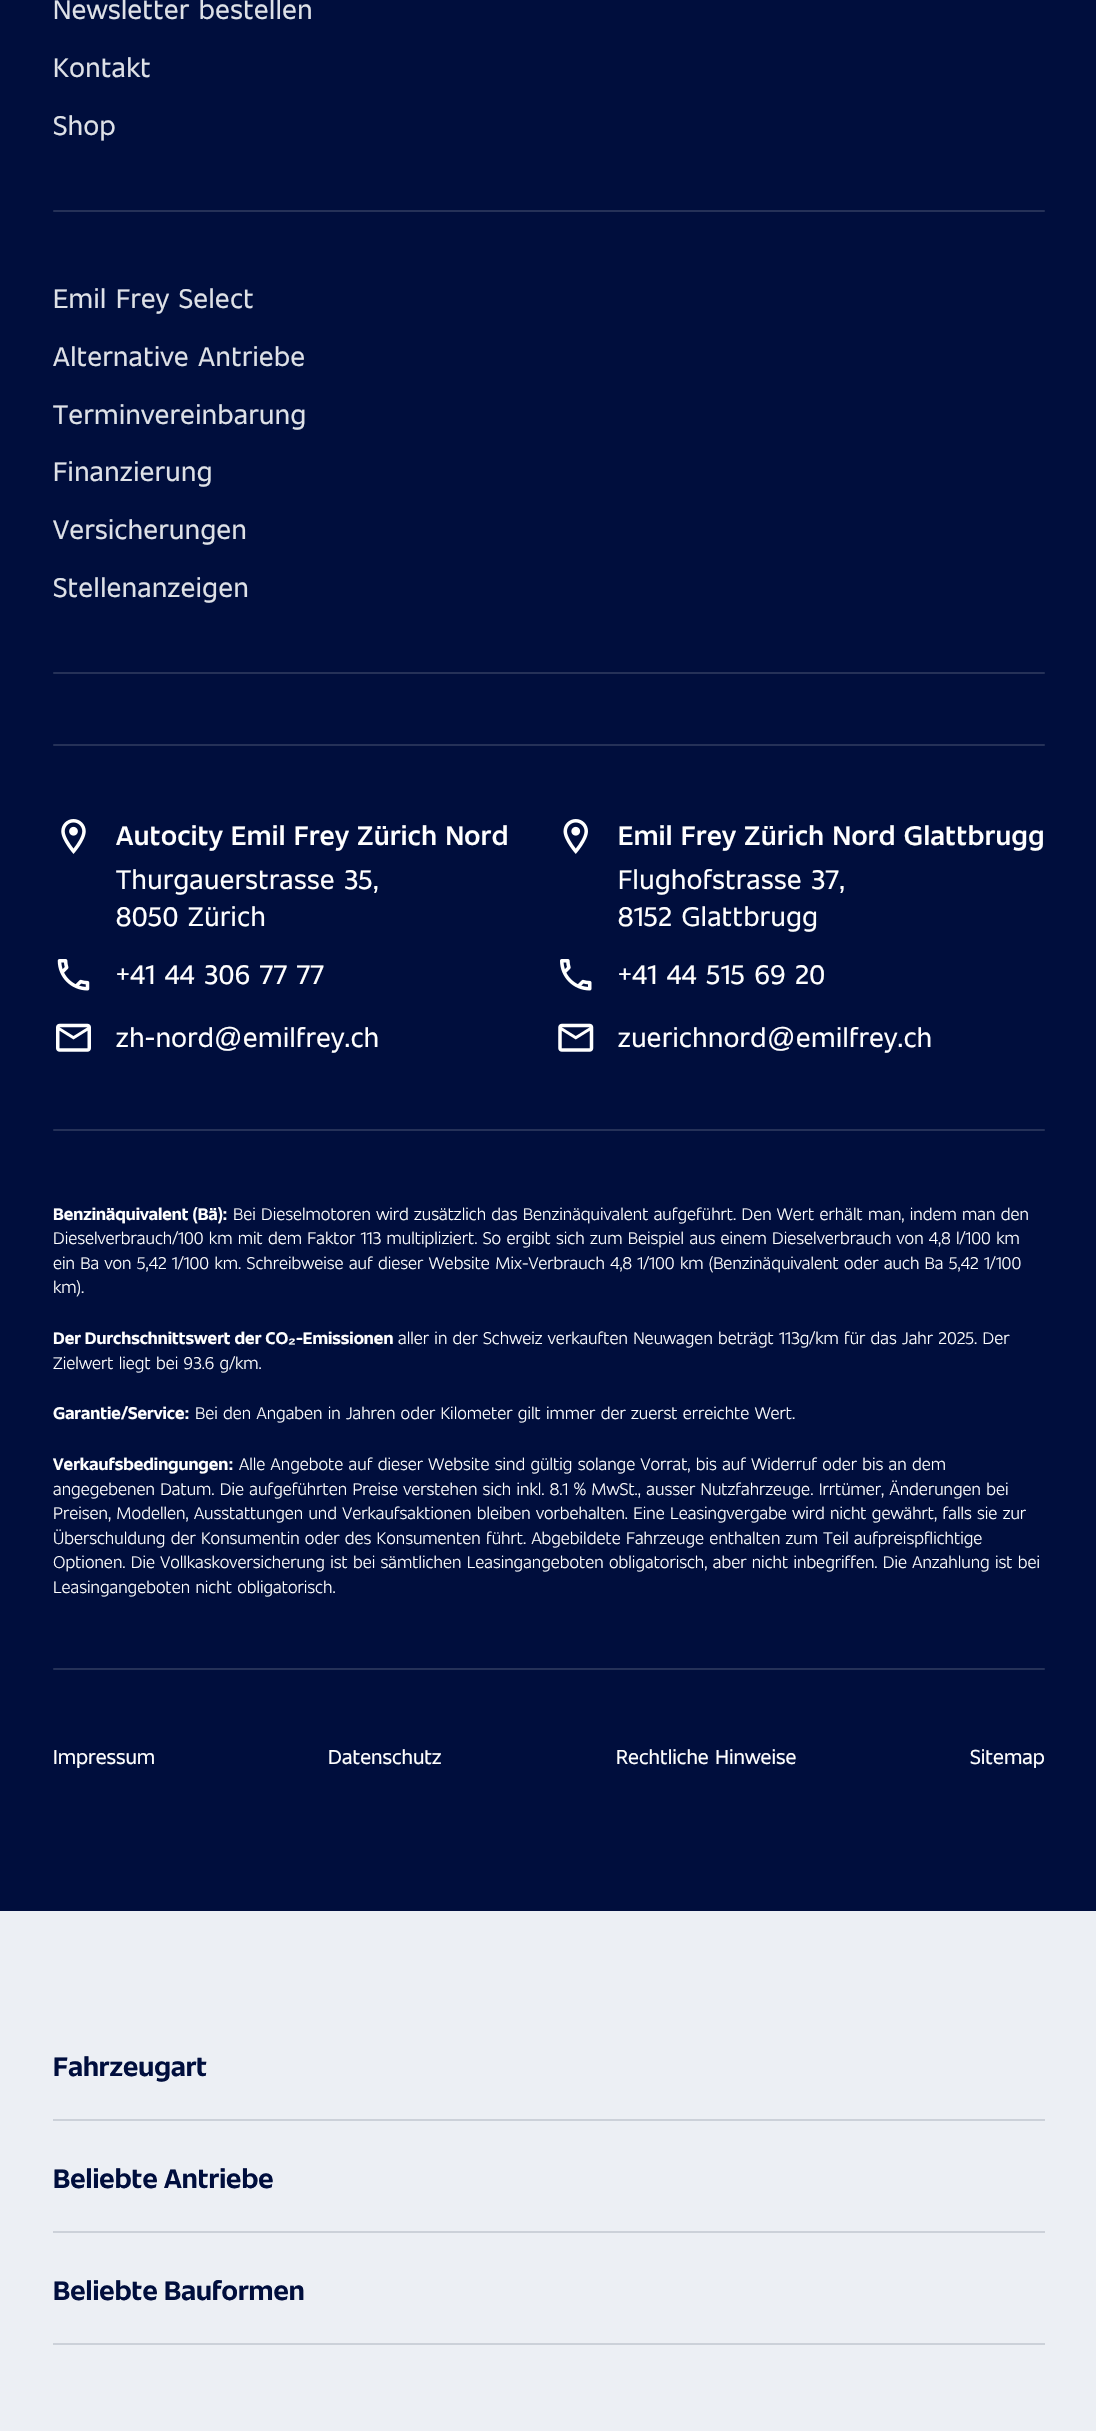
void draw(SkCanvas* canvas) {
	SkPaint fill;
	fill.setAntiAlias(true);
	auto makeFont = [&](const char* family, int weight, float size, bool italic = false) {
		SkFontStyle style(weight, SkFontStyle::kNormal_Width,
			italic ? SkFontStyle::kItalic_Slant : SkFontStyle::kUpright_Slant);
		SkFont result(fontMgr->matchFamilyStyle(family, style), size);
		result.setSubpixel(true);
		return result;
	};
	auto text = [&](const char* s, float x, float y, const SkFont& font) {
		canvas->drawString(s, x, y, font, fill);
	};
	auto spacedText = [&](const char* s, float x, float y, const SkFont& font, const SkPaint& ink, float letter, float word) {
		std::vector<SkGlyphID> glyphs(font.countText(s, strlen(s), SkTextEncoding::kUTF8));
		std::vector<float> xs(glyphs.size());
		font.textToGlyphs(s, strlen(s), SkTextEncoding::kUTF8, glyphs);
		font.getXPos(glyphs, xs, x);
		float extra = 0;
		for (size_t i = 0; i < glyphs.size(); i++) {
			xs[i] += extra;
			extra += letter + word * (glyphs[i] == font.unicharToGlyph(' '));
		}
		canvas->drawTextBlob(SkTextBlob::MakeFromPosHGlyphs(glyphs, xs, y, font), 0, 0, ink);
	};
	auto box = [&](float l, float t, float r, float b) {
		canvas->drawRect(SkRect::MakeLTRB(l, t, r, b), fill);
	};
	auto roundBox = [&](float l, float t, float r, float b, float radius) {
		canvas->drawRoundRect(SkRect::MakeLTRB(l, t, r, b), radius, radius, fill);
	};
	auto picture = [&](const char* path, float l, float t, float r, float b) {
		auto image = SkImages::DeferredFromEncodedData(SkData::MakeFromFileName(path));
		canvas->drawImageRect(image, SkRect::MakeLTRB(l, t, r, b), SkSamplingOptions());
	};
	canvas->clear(0xFF000E3D);
	fill.setColor(0xFF253158);
	roundBox(53, 210, 1045, 212, 1);
	roundBox(53, 672, 1045, 674, 1);
	roundBox(53, 744, 1045, 746, 1);
	picture("image0.png", 61, 819, 86, 854);
	picture("image1.png", 57, 959, 90, 991);
	picture("image2.png", 56, 1023, 91, 1052);
	picture("image3.png", 563, 819, 588, 854);
	picture("image4.png", 560, 959, 592, 991);
	picture("image5.png", 558, 1023, 594, 1052);
	roundBox(53, 1129, 1045, 1131, 1);
	roundBox(53, 1668, 1045, 1670, 1);
	fill.setColor(0xFFECEFF4);
	box(0, 1911, 1096, 2431);
	fill.setColor(0xFFCCD1D9);
	box(53, 2119, 1045, 2121);
	box(53, 2231, 1045, 2233);
	box(53, 2343, 1045, 2345);
	auto font1 = makeFont("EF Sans", 400, 28);
	fill.setColor(0xFFDEE1E7);
	spacedText("Newsletter bestellen", 53, 19, font1, fill, 0.45f, 0);
	spacedText("Kontakt", 53, 77, font1, fill, 0.45f, 0);
	spacedText("Shop", 53, 135, font1, fill, 0.45f, 0);
	spacedText("Emil Frey Select", 53, 308, font1, fill, 0.45f, 0);
	spacedText("Alternative Antriebe", 53, 366, font1, fill, 0.45f, 0);
	spacedText("Terminvereinbarung", 53, 424, font1, fill, 0.45f, 0);
	spacedText("Finanzierung", 53, 481, font1, fill, 0.45f, 0);
	spacedText("Versicherungen", 53, 539, font1, fill, 0.45f, 0);
	spacedText("Stellenanzeigen", 53, 597, font1, fill, 0.45f, 0);
	auto font2 = makeFont("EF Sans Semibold", 600, 28);
	fill.setColor(0xFFFFFFFF);
	spacedText("Autocity Emil Frey Zürich Nord", 116, 845, font2, fill, 0.45f, 0);
	spacedText("Thurgauerstrasse 35,", 116, 889, font1, fill, 0.45f, 0);
	spacedText("8050 Zürich", 116, 926, font1, fill, 0.45f, 0);
	spacedText("+41 44 306 77 77", 116, 984, font1, fill, 0.45f, 0);
	spacedText("zh-nord", 116, 1047, font1, fill, 0.45f, 0);
	auto font3 = makeFont("Liberation Sans", 400, 28);
	spacedText("@", 214, 1047, font3, fill, 0.45f, 0);
	spacedText("emilfrey.ch", 243, 1047, font1, fill, 0.45f, 0);
	spacedText("Emil Frey Zürich Nord Glattbrugg", 618, 845, font2, fill, 0.45f, 0);
	spacedText("Flughofstrasse 37,", 618, 889, font1, fill, 0.45f, 0);
	spacedText("8152 Glattbrugg", 618, 926, font1, fill, 0.45f, 0);
	spacedText("+41 44 515 69 20", 618, 984, font1, fill, 0.45f, 0);
	spacedText("zuerichnord", 618, 1047, font1, fill, 0.45f, 0);
	spacedText("@", 767, 1047, font3, fill, 0.45f, 0);
	spacedText("emilfrey.ch", 796, 1047, font1, fill, 0.45f, 0);
	auto font4 = makeFont("EF Sans", 700, 17.5f);
	text("Benzinäquivalent (Bä)", 53, 1220, font4);
	auto font5 = makeFont("Liberation Sans", 700, 17.5f);
	text(":", 222, 1220, font5);
	auto font6 = makeFont("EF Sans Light", 300, 17.5f);
	text("Bei Dieselmotoren wird zusätzlich das Benzinäquivalent aufgeführt. Den Wert erhält man, indem man den", 233, 1220, font6);
	text("Dieselverbrauch/100 km mit dem Faktor 113 multipliziert. So ergibt sich zum Beispiel aus einem Dieselverbrauch von 4,8 l/100 km", 53, 1244, font6);
	text("ein Ba von 5,42 1/100 km. Schreibweise auf dieser Website Mix-Verbrauch 4,8 1/100 km (Benzinäquivalent oder auch Ba 5,42 1/100", 53, 1269, font6);
	text("km).", 53, 1293, font6);
	text("Der Durchschnittswert der CO", 53, 1344, font4);
	text("₂", 288, 1344, font5);
	text("-Emissionen", 296, 1344, font4);
	text("aller in der Schweiz verkauften Neuwagen beträgt 113g/km für das Jahr 2025. Der", 398, 1344, font6);
	text("Zielwert liegt bei 93.6 g/km.", 53, 1369, font6);
	text("Garantie/Service", 53, 1419, font4);
	text(":", 184, 1419, font5);
	text("Bei den Angaben in Jahren oder Kilometer gilt immer der zuerst erreichte Wert.", 195, 1419, font6);
	text("Verkaufsbedingungen", 53, 1470, font4);
	text(":", 228, 1470, font5);
	text("Alle Angebote auf dieser Website sind gültig solange Vorrat, bis auf Widerruf oder bis an dem", 239, 1470, font6);
	text("angegebenen Datum. Die aufgeführten Preise verstehen sich inkl. 8.1 % MwSt., ausser Nutzfahrzeuge. Irrtümer, Änderungen bei", 53, 1495, font6);
	text("Preisen, Modellen, Ausstattungen und Verkaufsaktionen bleiben vorbehalten. Eine Leasingvergabe wird nicht gewährt, falls sie zur", 53, 1519, font6);
	text("Überschuldung der Konsumentin oder des Konsumenten führt. Abgebildete Fahrzeuge enthalten zum Teil aufpreispflichtige", 53, 1544, font6);
	text("Optionen. Die Vollkaskoversicherung ist bei sämtlichen Leasingangeboten obligatorisch, aber nicht inbegriffen. Die Anzahlung ist bei", 53, 1568, font6);
	text("Leasingangeboten nicht obligatorisch.", 53, 1593, font6);
	auto font7 = makeFont("EF Sans", 400, 21);
	text("Impressum", 53, 1764, font7);
	text("Datenschutz", 328, 1764, font7);
	text("Rechtliche Hinweise", 616, 1764, font7);
	text("Sitemap", 970, 1764, font7);
	auto font8 = makeFont("EF Sans", 700, 28);
	fill.setColor(0xFF000E3D);
	text("Fahrzeugart", 53, 2076, font8);
	text("Beliebte Antriebe", 53, 2188, font8);
	text("Beliebte Bauformen", 53, 2300, font8);
}
